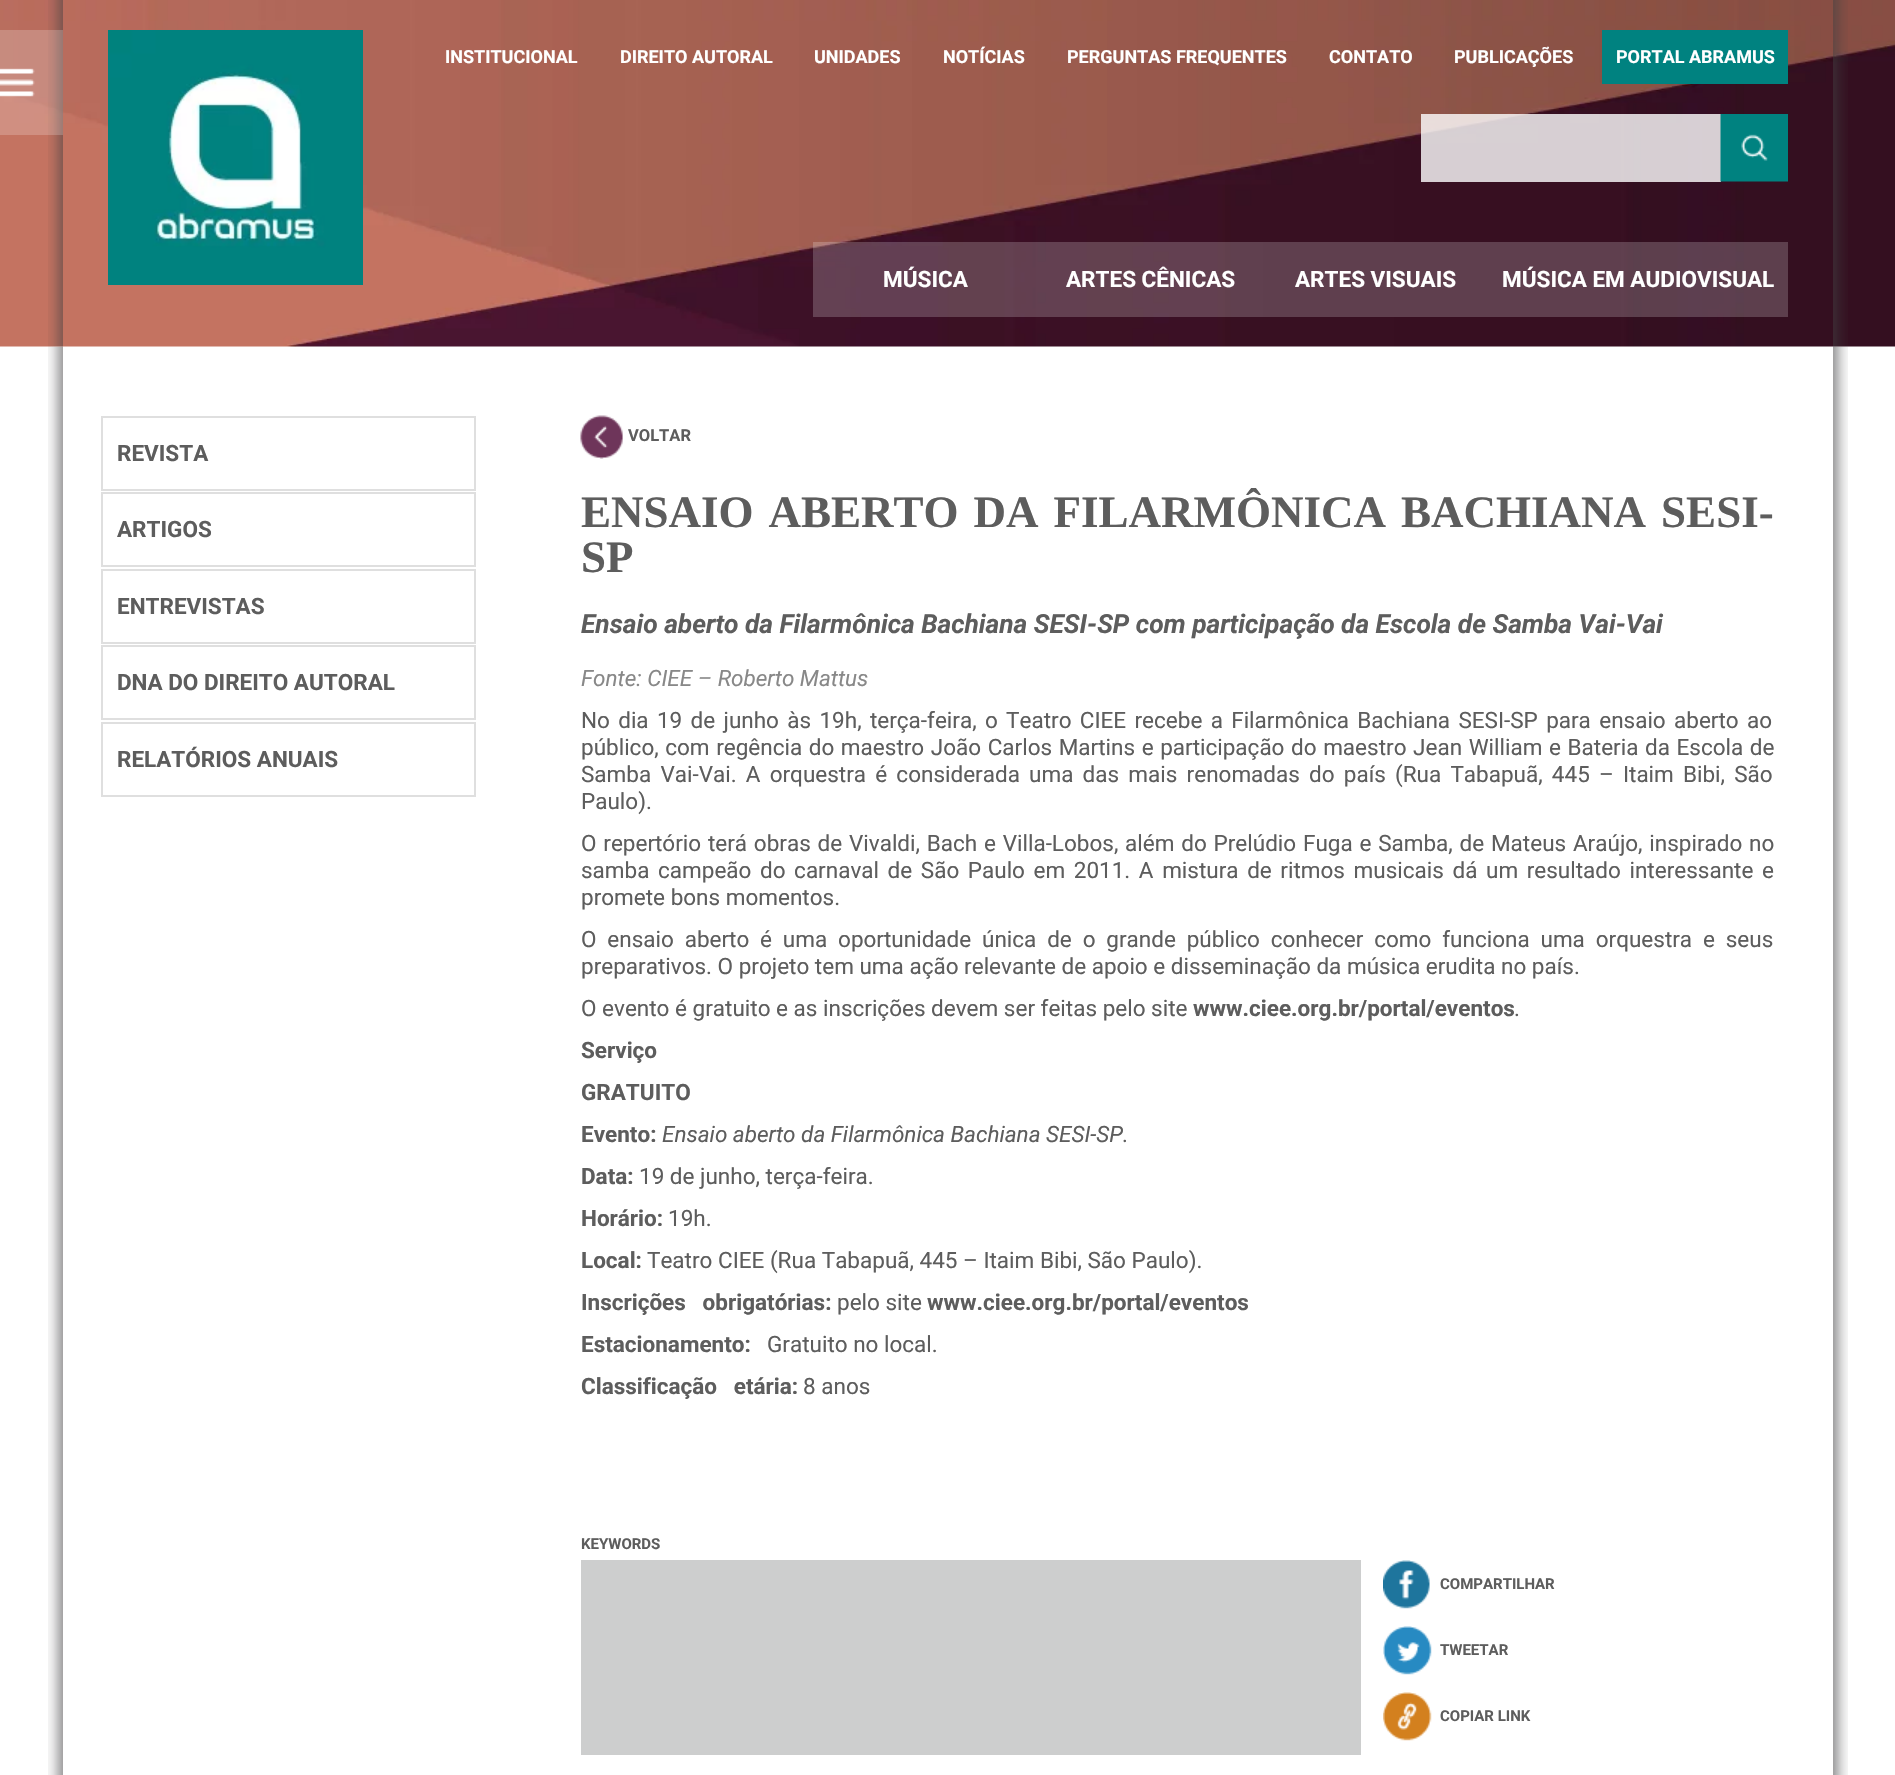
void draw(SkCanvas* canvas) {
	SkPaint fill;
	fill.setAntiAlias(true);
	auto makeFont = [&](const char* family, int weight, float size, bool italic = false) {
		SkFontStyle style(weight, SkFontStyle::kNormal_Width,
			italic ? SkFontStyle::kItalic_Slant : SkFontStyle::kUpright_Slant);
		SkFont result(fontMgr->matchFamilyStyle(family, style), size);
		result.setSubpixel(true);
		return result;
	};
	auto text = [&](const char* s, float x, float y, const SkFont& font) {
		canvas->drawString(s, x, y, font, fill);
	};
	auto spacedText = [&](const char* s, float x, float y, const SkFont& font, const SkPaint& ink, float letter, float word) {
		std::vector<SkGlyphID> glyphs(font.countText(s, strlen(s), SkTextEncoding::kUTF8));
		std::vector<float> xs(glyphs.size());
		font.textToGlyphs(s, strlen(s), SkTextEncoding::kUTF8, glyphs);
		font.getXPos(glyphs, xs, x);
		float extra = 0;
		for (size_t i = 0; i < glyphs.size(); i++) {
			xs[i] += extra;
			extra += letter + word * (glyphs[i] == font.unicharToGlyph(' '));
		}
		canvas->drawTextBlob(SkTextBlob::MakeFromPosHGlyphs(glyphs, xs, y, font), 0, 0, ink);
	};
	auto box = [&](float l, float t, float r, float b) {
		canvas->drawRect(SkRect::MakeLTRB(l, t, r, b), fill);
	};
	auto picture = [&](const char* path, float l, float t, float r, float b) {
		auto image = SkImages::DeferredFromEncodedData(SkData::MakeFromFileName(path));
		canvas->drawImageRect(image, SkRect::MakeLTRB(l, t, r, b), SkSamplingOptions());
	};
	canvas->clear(0xFFFFFFFF);
	picture("image0.png", 0, 0, 1895, 347);
	picture("image5.png", 48, 346, 1848, 1775);
	picture("image1.png", 48, 0, 1848, 347);
	picture("image2.png", 0, 30, 63, 135);
	picture("image3.png", 108, 30, 363, 285);
	fill.setColor(0xFF008280);
	box(1602, 30, 1788, 84);
	fill.setColor(0xCCFFFFFF);
	box(1421, 114, 1721, 182);
	picture("image4.png", 1720, 114, 1788, 182);
	fill.setColor(0x33FFFFFF);
	box(813, 242, 1038, 317);
	box(1038, 242, 1263, 317);
	fill.setColor(0xFF5F3F4E);
	box(1263, 242, 1488, 317);
	fill.setColor(0x33FFFFFF);
	box(1488, 242, 1788, 317);
	fill.setStyle(SkPaint::kStroke_Style);
	fill.setStrokeWidth(2);
	fill.setColor(0xFFDFDFDF);
	canvas->drawRect(SkRect::MakeLTRB(102, 417, 475, 490), fill);
	canvas->drawRect(SkRect::MakeLTRB(102, 493, 475, 566), fill);
	canvas->drawRect(SkRect::MakeLTRB(102, 570, 475, 643), fill);
	canvas->drawRect(SkRect::MakeLTRB(102, 646, 475, 719), fill);
	canvas->drawRect(SkRect::MakeLTRB(102, 723, 475, 796), fill);
	picture("image6.png", 580, 415, 623, 459);
	fill.setStyle(SkPaint::kFill_Style);
	fill.setColor(0xFFCDCECE);
	box(581, 1560, 1361, 1755);
	picture("image7.png", 1383, 1560, 1430, 1609);
	picture("image8.png", 1383, 1626, 1432, 1675);
	picture("image9.png", 1383, 1692, 1432, 1741);
	auto font1 = makeFont("Roboto", 700, 18);
	fill.setColor(0xFFFFFFFF);
	text("INSTITUCIONAL", 445, 63, font1);
	text("DIREITO AUTORAL", 620, 63, font1);
	text("UNIDADES", 814, 63, font1);
	text("NOTÍCIAS", 943, 63, font1);
	text("PERGUNTAS FREQUENTES", 1067, 63, font1);
	text("CONTATO", 1329, 63, font1);
	text("PUBLICAÇÕES", 1454, 63, font1);
	text("PORTAL ABRAMUS", 1616, 63, font1);
	auto font2 = makeFont("Roboto", 700, 22.5f);
	text("MÚSICA", 883, 287, font2);
	text("ARTES CÊNICAS", 1066, 287, font2);
	text("ARTES VISUAIS", 1295, 287, font2);
	text("MÚSICA EM AUDIOVISUAL", 1502, 287, font2);
	fill.setColor(0xFF5D5D5D);
	text("REVISTA", 117, 461, font2);
	text("ARTIGOS", 117, 537, font2);
	text("ENTREVISTAS", 117, 614, font2);
	text("DNA DO DIREITO AUTORAL", 117, 690, font2);
	text("RELATÓRIOS ANUAIS", 117, 767, font2);
	auto font3 = makeFont("Roboto", 700, 16.5f);
	text("VOLTAR", 628, 441, font3);
	auto font4 = makeFont("Liberation Serif", 700, 45);
	spacedText("ENSAIO ABERTO DA FILARMÔNICA BACHIANA SESI-", 581, 527, font4, fill, 0, 3.75f);
	text("SP", 581, 572, font4);
	auto font5 = makeFont("Roboto", 700, 26.35f, true);
	text("Ensaio aberto da Filarmônica Bachiana SESI-SP com participação da Escola de Samba Vai-Vai", 581, 633, font5);
	auto font6 = makeFont("Roboto", 400, 22.5f, true);
	fill.setColor(0xFF888888);
	text("Fonte: CIEE – Roberto Mattus", 581, 686, font6);
	auto font7 = makeFont("Roboto", 400, 22.5f);
	fill.setColor(0xFF5D5D5D);
	spacedText("No dia 19 de junho às 19h, terça-feira, o Teatro CIEE recebe a Filarmônica Bachiana SESI-SP para ensaio aberto ao", 581, 728, font7, fill, 0, 2.75f);
	spacedText("público, com regência do maestro João Carlos Martins e participação do maestro Jean William e Bateria da Escola de", 581, 755, font7, fill, 0, 1);
	spacedText("Samba Vai-Vai. A orquestra é considerada uma das mais renomadas do país (Rua Tabapuã, 445 – Itaim Bibi, São", 581, 782, font7, fill, 0, 3.6f);
	text("Paulo).", 581, 809, font7);
	spacedText("O repertório terá obras de Vivaldi, Bach e Villa-Lobos, além do Prelúdio Fuga e Samba, de Mateus Araújo, inspirado no", 581, 851, font7, fill, 0, 1.2f);
	spacedText("samba campeão do carnaval de São Paulo em 2011. A mistura de ritmos musicais dá um resultado interessante e", 581, 878, font7, fill, 0, 3);
	text("promete bons momentos.", 581, 905, font7);
	spacedText("O ensaio aberto é uma oportunidade única de o grande público conhecer como funciona uma orquestra e seus", 581, 947, font7, fill, 0, 5.25f);
	text("preparativos. O projeto tem uma ação relevante de apoio e disseminação da música erudita no país.", 581, 974, font7);
	text("O evento é gratuito e as inscrições devem ser feitas pelo site", 581, 1016, font7);
	text("www.ciee.org.br/portal/eventos", 1193, 1016, font2);
	text(".", 1514, 1016, font7);
	text("Serviço", 581, 1058, font2);
	text("GRATUITO", 581, 1100, font2);
	text("Evento:", 581, 1142, font2);
	text("Ensaio aberto da Filarmônica Bachiana SESI-SP.", 662, 1142, font6);
	text("Data:", 581, 1184, font2);
	text("19 de junho, terça-feira.", 639, 1184, font7);
	text("Horário:", 581, 1226, font2);
	text("19h.", 668, 1226, font7);
	text("Local:", 581, 1268, font2);
	text("Teatro CIEE (Rua Tabapuã, 445 – Itaim Bibi, São Paulo).", 647, 1268, font7);
	text("Inscrições   obrigatórias:", 581, 1310, font2);
	text("pelo site", 837, 1310, font7);
	text("www.ciee.org.br/portal/eventos", 927, 1310, font2);
	text("Estacionamento:", 581, 1352, font2);
	text("Gratuito no local.", 767, 1352, font7);
	text("Classificação   etária:", 581, 1394, font2);
	text("8 anos", 803, 1394, font7);
	auto font8 = makeFont("Roboto", 700, 15);
	text("KEYWORDS", 581, 1549, font8);
	text("COMPARTILHAR", 1440, 1589, font8);
	text("TWEETAR", 1440, 1655, font8);
	text("COPIAR LINK", 1440, 1721, font8);
}
